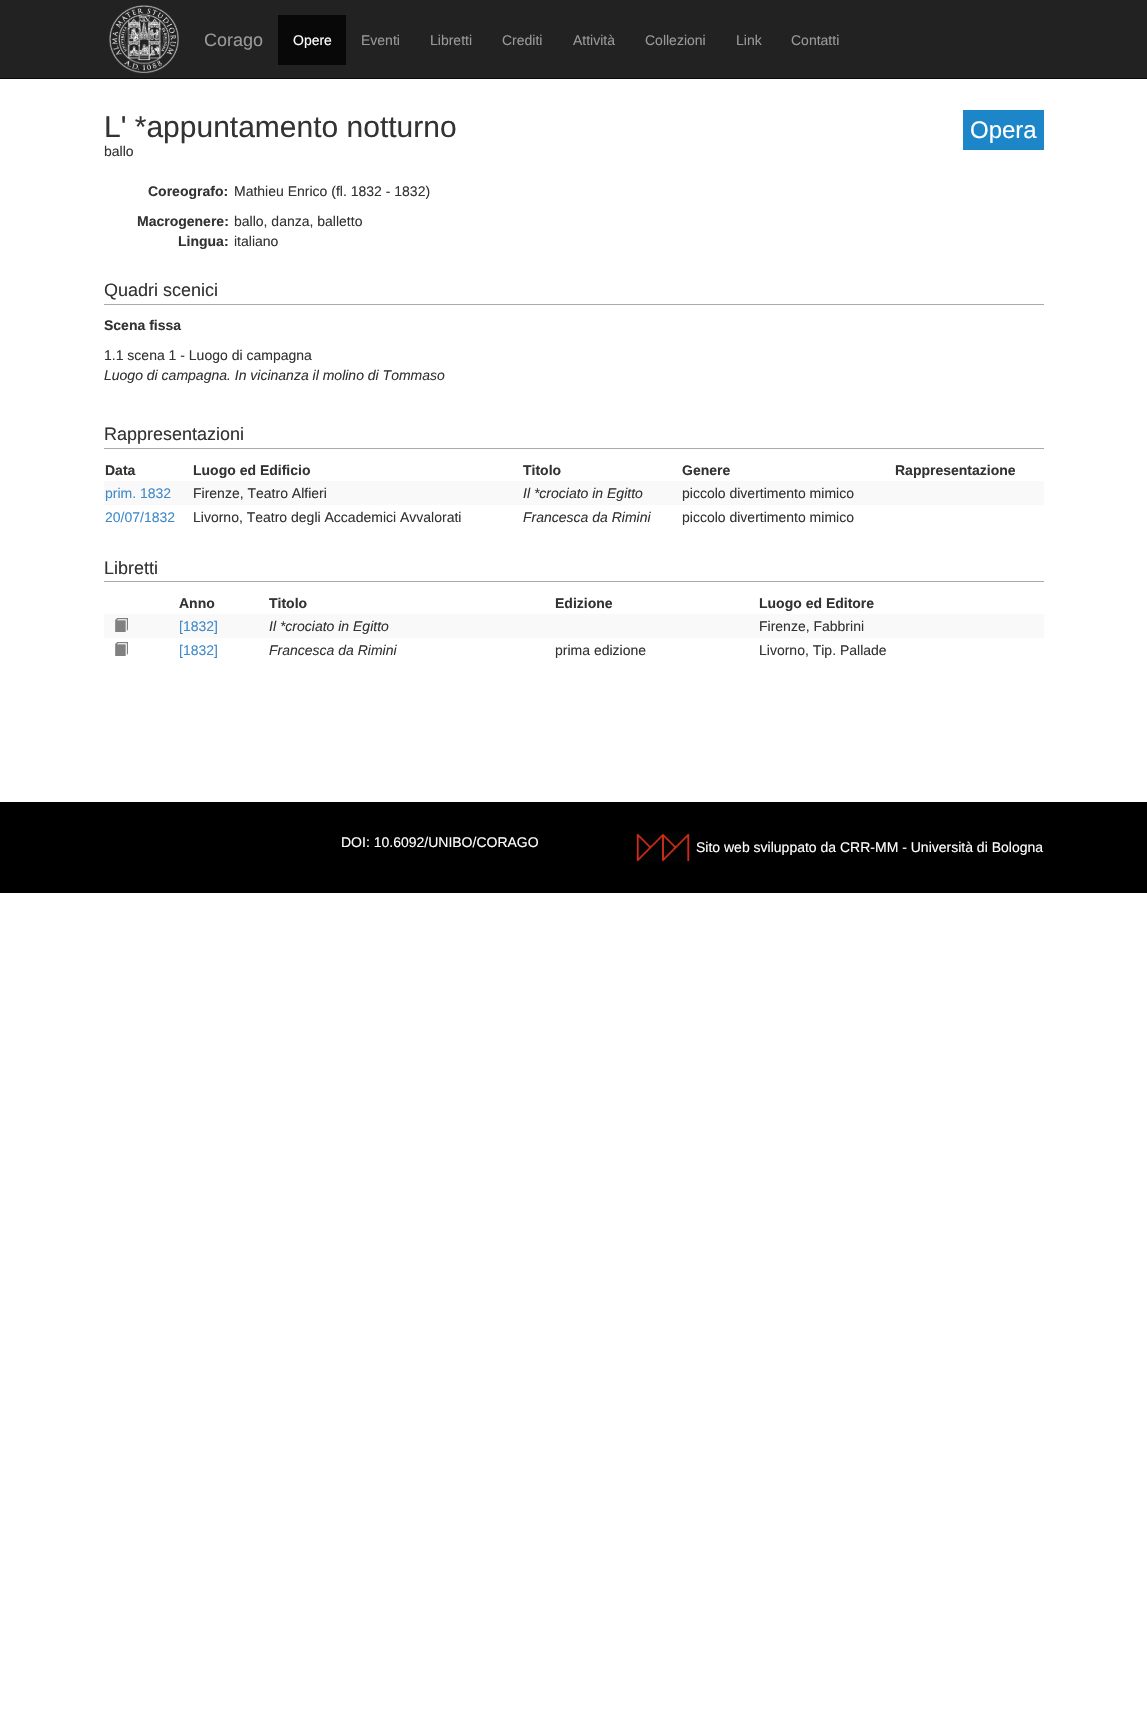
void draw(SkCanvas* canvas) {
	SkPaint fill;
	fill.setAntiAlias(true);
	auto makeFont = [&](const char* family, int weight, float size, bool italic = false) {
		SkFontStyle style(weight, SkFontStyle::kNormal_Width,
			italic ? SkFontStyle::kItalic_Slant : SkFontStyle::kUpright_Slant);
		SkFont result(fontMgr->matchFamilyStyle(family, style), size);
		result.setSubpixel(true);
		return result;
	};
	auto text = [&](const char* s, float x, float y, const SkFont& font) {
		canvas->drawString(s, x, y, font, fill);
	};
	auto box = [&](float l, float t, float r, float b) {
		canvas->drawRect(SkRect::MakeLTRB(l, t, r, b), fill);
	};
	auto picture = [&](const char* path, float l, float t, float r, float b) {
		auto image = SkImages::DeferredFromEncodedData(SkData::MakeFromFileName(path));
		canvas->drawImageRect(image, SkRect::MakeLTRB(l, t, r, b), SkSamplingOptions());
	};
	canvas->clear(0xFFFFFFFF);
	fill.setColor(0xFF222222);
	box(0, 0, 1147, 78);
	fill.setColor(0xFF080808);
	box(0, 78, 1147, 79);
	picture("image0.png", 109, 5, 179, 74);
	box(278, 15, 346, 65);
	fill.setColor(0xFF1C86C8);
	box(963, 110, 1044, 150);
	fill.setColor(0xFFAAAAAA);
	box(104, 304, 1044, 305);
	box(104, 448, 1044, 449);
	fill.setColor(0xFFF9F9F9);
	box(104, 481, 1044, 505);
	fill.setColor(0xFFAAAAAA);
	box(104, 581, 1044, 582);
	fill.setColor(0xFFF9F9F9);
	box(104, 614, 1044, 638);
	picture("image1.png", 115, 618, 128, 632);
	picture("image2.png", 115, 642, 128, 656);
	fill.setColor(0xFF000000);
	box(0, 802, 1147, 893);
	picture("image3.png", 636, 833, 690, 862);
	auto font1 = makeFont("Liberation Sans", 400, 18);
	fill.setColor(0xFF999999);
	text("Corago", 204, 46, font1);
	auto font2 = makeFont("Liberation Sans", 400, 14);
	fill.setColor(0xFFFFFFFF);
	text("Opere", 293, 45, font2);
	fill.setColor(0xFF999999);
	text("Eventi", 361, 45, font2);
	text("Libretti", 430, 45, font2);
	text("Crediti", 502, 45, font2);
	text("Attività", 573, 45, font2);
	text("Collezioni", 645, 45, font2);
	text("Link", 736, 45, font2);
	text("Contatti", 791, 45, font2);
	auto font3 = makeFont("Liberation Sans", 400, 30);
	fill.setColor(0xFF333333);
	text("L' *appuntamento notturno", 104, 137, font3);
	auto font4 = makeFont("Liberation Sans", 400, 24);
	fill.setColor(0xFFFFFFFF);
	text("Opera", 970, 138, font4);
	fill.setColor(0xFF333333);
	text("ballo", 104, 156, font2);
	auto font5 = makeFont("Liberation Sans", 700, 14);
	text("Coreografo:", 148, 196, font5);
	text("Mathieu Enrico (fl. 1832 - 1832)", 234, 196, font2);
	text("Macrogenere:", 137, 226, font5);
	text("ballo, danza, balletto", 234, 226, font2);
	text("Lingua:", 178, 246, font5);
	text("italiano", 234, 246, font2);
	text("Quadri scenici", 104, 296, font1);
	text("Scena fissa", 104, 330, font5);
	text("1.1 scena 1 - Luogo di campagna", 104, 360, font2);
	auto font6 = makeFont("Liberation Sans", 400, 14, true);
	text("Luogo di campagna. In vicinanza il molino di Tommaso", 104, 380, font6);
	text("Rappresentazioni", 104, 440, font1);
	text("Data", 105, 475, font5);
	text("Luogo ed Edificio", 193, 475, font5);
	text("Titolo", 523, 475, font5);
	text("Genere", 682, 475, font5);
	text("Rappresentazione", 895, 475, font5);
	fill.setColor(0xFF428BCA);
	text("prim. 1832", 105, 498, font2);
	fill.setColor(0xFF333333);
	text("Firenze, Teatro Alfieri", 193, 498, font2);
	text("Il *crociato in Egitto", 523, 498, font6);
	text("piccolo divertimento mimico", 682, 498, font2);
	fill.setColor(0xFF428BCA);
	text("20/07/1832", 105, 522, font2);
	fill.setColor(0xFF333333);
	text("Livorno, Teatro degli Accademici Avvalorati", 193, 522, font2);
	text("Francesca da Rimini", 523, 522, font6);
	text("piccolo divertimento mimico", 682, 522, font2);
	text("Libretti", 104, 574, font1);
	text("Anno", 179, 608, font5);
	text("Titolo", 269, 608, font5);
	text("Edizione", 555, 608, font5);
	text("Luogo ed Editore", 759, 608, font5);
	fill.setColor(0xFF428BCA);
	text("[1832]", 179, 631, font2);
	fill.setColor(0xFF333333);
	text("Il *crociato in Egitto", 269, 631, font6);
	text("Firenze, Fabbrini", 759, 631, font2);
	fill.setColor(0xFF428BCA);
	text("[1832]", 179, 655, font2);
	fill.setColor(0xFF333333);
	text("Francesca da Rimini", 269, 655, font6);
	text("prima edizione", 555, 655, font2);
	text("Livorno, Tip. Pallade", 759, 655, font2);
	fill.setColor(0xFFFFFFFF);
	text("DOI: 10.6092/UNIBO/CORAGO", 341, 847, font2);
	text("Sito web sviluppato da CRR-MM - Università di Bologna", 696, 852, font2);
}
